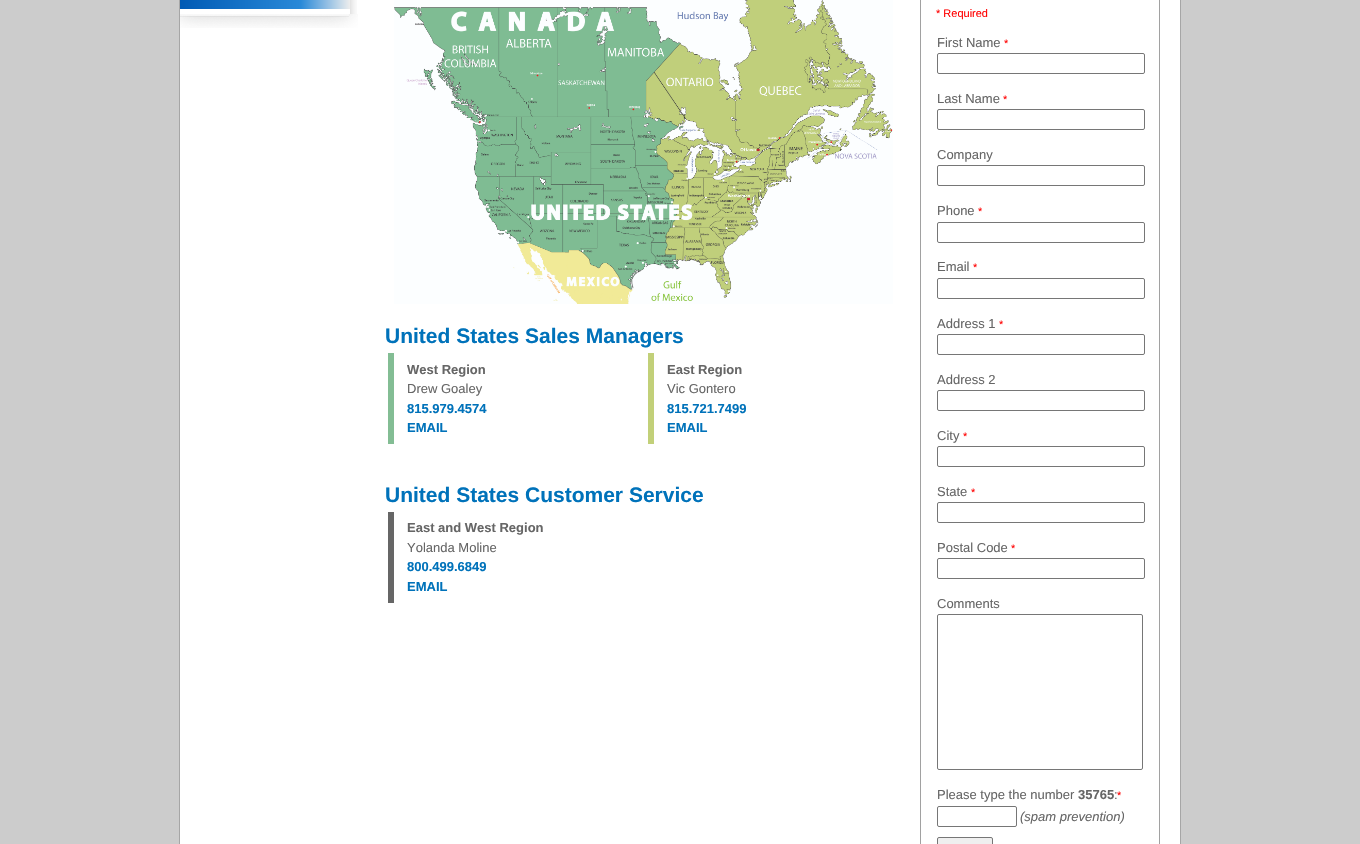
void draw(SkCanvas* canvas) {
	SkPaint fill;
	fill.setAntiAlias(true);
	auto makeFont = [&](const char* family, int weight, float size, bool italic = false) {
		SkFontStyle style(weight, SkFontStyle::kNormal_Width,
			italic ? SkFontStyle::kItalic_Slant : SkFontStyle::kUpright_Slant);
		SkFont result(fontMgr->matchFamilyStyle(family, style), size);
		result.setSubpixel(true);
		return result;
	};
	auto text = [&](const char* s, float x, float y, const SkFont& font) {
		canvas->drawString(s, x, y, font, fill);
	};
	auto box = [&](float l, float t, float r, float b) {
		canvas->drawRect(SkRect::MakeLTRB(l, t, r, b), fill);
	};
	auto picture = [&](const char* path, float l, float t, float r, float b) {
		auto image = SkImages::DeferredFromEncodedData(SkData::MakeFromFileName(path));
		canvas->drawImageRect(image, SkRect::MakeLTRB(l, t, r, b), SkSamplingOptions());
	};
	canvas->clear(0xFFCCCCCC);
	fill.setColor(0xFFFFFFFF);
	canvas->drawRect(SkRect::MakeLTRB(179.5f, -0.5f, 1180.5f, 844.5f), fill);
	fill.setStyle(SkPaint::kStroke_Style);
	fill.setStrokeWidth(1);
	fill.setColor(0xFFA6A6A6);
	canvas->drawRect(SkRect::MakeLTRB(179.5f, -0.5f, 1180.5f, 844.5f), fill);
	picture("image0.png", 350, 0, 357, 14);
	fill.setStyle(SkPaint::kFill_Style);
	{
		const SkColor colors[] = {0xFF015AB4, 0xFF2989D8, 0xFFEDEDED};
		const float stops[] = {0, 0.71f, 1};
		const SkPoint ends[] = {{180, 0}, {350, 0}};
		fill.setShader(SkGradientShader::MakeLinear(ends, colors, stops, 3, SkTileMode::kClamp));
		fill.setAlpha(255);
	}
	box(180, 0, 350, 9);
	picture("image1.png", 180, 14, 358, 28);
	picture("image2.png", 394, 0, 893, 304);
	fill.setShader(nullptr);
	fill.setColor(0xFF83BD94);
	box(388, 353, 394, 444);
	fill.setColor(0xFFC2D079);
	box(648, 353, 654, 444);
	fill.setColor(0xFF666666);
	box(388, 512, 394, 603);
	fill.setStyle(SkPaint::kStroke_Style);
	fill.setColor(0xFFA1A1A1);
	canvas->drawRect(SkRect::MakeLTRB(920.5f, -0.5f, 1159.5f, 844.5f), fill);
	fill.setColor(0xFF767676);
	canvas->drawRoundRect(SkRect::MakeLTRB(937.5f, 53.5f, 1144.5f, 73.5f), 1.5f, 1.5f, fill);
	canvas->drawRoundRect(SkRect::MakeLTRB(937.5f, 109.5f, 1144.5f, 129.5f), 1.5f, 1.5f, fill);
	canvas->drawRoundRect(SkRect::MakeLTRB(937.5f, 165.5f, 1144.5f, 185.5f), 1.5f, 1.5f, fill);
	canvas->drawRoundRect(SkRect::MakeLTRB(937.5f, 222.5f, 1144.5f, 242.5f), 1.5f, 1.5f, fill);
	canvas->drawRoundRect(SkRect::MakeLTRB(937.5f, 278.5f, 1144.5f, 298.5f), 1.5f, 1.5f, fill);
	canvas->drawRoundRect(SkRect::MakeLTRB(937.5f, 334.5f, 1144.5f, 354.5f), 1.5f, 1.5f, fill);
	canvas->drawRoundRect(SkRect::MakeLTRB(937.5f, 390.5f, 1144.5f, 410.5f), 1.5f, 1.5f, fill);
	canvas->drawRoundRect(SkRect::MakeLTRB(937.5f, 446.5f, 1144.5f, 466.5f), 1.5f, 1.5f, fill);
	canvas->drawRoundRect(SkRect::MakeLTRB(937.5f, 502.5f, 1144.5f, 522.5f), 1.5f, 1.5f, fill);
	canvas->drawRoundRect(SkRect::MakeLTRB(937.5f, 558.5f, 1144.5f, 578.5f), 1.5f, 1.5f, fill);
	canvas->drawRoundRect(SkRect::MakeLTRB(937.5f, 614.5f, 1142.5f, 769.5f), 1.5f, 1.5f, fill);
	canvas->drawRoundRect(SkRect::MakeLTRB(937.5f, 806.5f, 1016.5f, 826.5f), 1.5f, 1.5f, fill);
	fill.setStyle(SkPaint::kFill_Style);
	fill.setColor(0xFFEFEFEF);
	canvas->drawRoundRect(SkRect::MakeLTRB(937.5f, 837.5f, 992.5f, 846.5f), 1.5f, 1.5f, fill);
	fill.setStyle(SkPaint::kStroke_Style);
	fill.setColor(0xFF767676);
	canvas->drawRoundRect(SkRect::MakeLTRB(937.5f, 837.5f, 992.5f, 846.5f), 1.5f, 1.5f, fill);
	auto font1 = makeFont("Liberation Sans", 700, 21);
	fill.setStyle(SkPaint::kFill_Style);
	fill.setColor(0xFF0072BA);
	text("United States Sales Managers", 385, 343, font1);
	auto font2 = makeFont("Liberation Sans", 700, 13);
	fill.setColor(0xFF666666);
	text("West Region", 407, 374, font2);
	auto font3 = makeFont("Liberation Sans", 400, 13);
	text("Drew Goaley", 407, 393, font3);
	fill.setColor(0xFF0072BA);
	text("815.979.4574", 407, 413, font2);
	text("EMAIL", 407, 432, font2);
	fill.setColor(0xFF666666);
	text("East Region", 667, 374, font2);
	text("Vic Gontero", 667, 393, font3);
	fill.setColor(0xFF0072BA);
	text("815.721.7499", 667, 413, font2);
	text("EMAIL", 667, 432, font2);
	text("United States Customer Service", 385, 502, font1);
	fill.setColor(0xFF666666);
	text("East and West Region", 407, 532, font2);
	text("Yolanda Moline", 407, 552, font3);
	fill.setColor(0xFF0072BA);
	text("800.499.6849", 407, 571, font2);
	text("EMAIL", 407, 591, font2);
	auto font4 = makeFont("Liberation Sans", 400, 11);
	fill.setColor(0xFFFF0000);
	text("* Required", 936, 17, font4);
	fill.setColor(0xFF666666);
	text("First Name", 937, 47, font3);
	fill.setColor(0xFFFF0000);
	text("*", 1004, 47, font4);
	fill.setColor(0xFF666666);
	text("Last Name", 937, 103, font3);
	fill.setColor(0xFFFF0000);
	text("*", 1003, 103, font4);
	fill.setColor(0xFF666666);
	text("Company", 937, 159, font3);
	text("Phone", 937, 215, font3);
	fill.setColor(0xFFFF0000);
	text("*", 978, 215, font4);
	fill.setColor(0xFF666666);
	text("Email", 937, 271, font3);
	fill.setColor(0xFFFF0000);
	text("*", 973, 271, font4);
	fill.setColor(0xFF666666);
	text("Address 1", 937, 328, font3);
	fill.setColor(0xFFFF0000);
	text("*", 999, 328, font4);
	fill.setColor(0xFF666666);
	text("Address 2", 937, 384, font3);
	text("City", 937, 440, font3);
	fill.setColor(0xFFFF0000);
	text("*", 963, 440, font4);
	fill.setColor(0xFF666666);
	text("State", 937, 496, font3);
	fill.setColor(0xFFFF0000);
	text("*", 971, 496, font4);
	fill.setColor(0xFF666666);
	text("Postal Code", 937, 552, font3);
	fill.setColor(0xFFFF0000);
	text("*", 1011, 552, font4);
	fill.setColor(0xFF666666);
	text("Comments", 937, 608, font3);
	text("Please type the number", 937, 799, font3);
	text("35765", 1078, 799, font2);
	text(":", 1114, 799, font3);
	fill.setColor(0xFFFF0000);
	text("*", 1117, 799, font4);
	auto font5 = makeFont("Liberation Sans", 400, 13, true);
	fill.setColor(0xFF666666);
	text("(spam prevention)", 1020, 821, font5);
}
